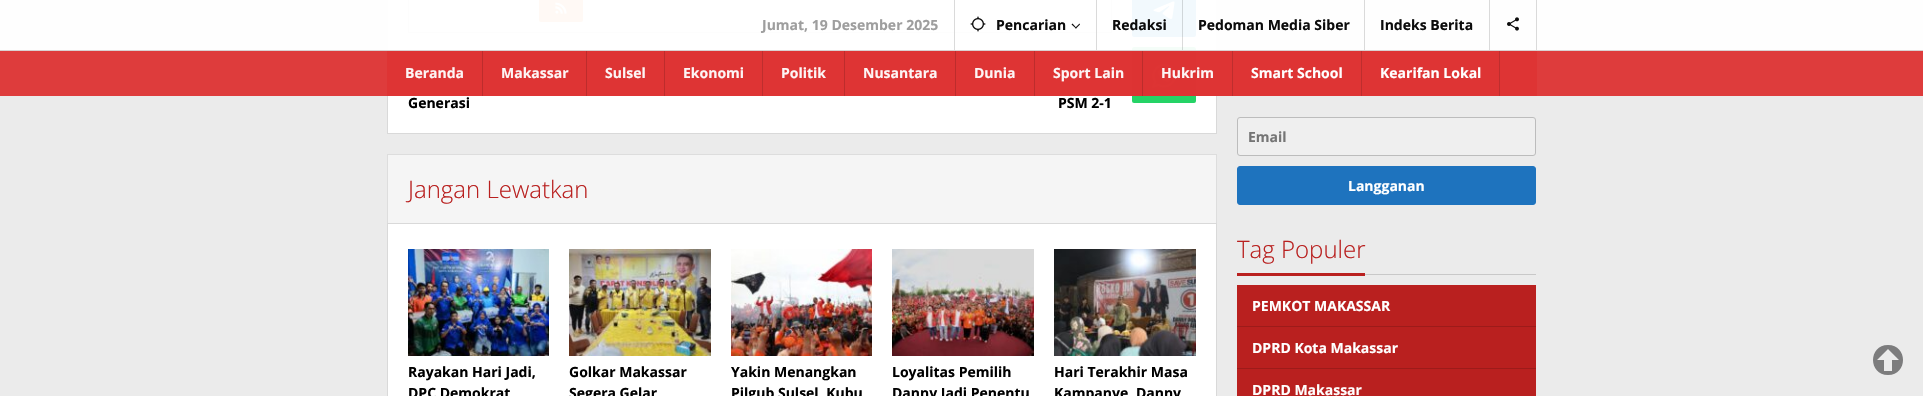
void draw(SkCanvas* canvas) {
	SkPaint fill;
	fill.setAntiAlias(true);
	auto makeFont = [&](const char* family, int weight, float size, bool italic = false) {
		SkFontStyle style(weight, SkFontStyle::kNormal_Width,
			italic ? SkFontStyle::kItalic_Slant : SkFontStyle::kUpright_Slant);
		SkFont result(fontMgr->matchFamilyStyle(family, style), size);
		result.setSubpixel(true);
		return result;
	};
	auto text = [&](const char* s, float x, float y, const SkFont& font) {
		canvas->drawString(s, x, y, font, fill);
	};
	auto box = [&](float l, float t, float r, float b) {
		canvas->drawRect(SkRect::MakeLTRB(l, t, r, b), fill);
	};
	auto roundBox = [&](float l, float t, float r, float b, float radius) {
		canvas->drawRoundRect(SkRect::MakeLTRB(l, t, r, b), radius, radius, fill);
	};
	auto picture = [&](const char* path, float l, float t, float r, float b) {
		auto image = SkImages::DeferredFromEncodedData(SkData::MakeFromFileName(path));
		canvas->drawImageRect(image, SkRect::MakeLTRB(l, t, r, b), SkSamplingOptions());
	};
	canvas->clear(0xFFEBEBEB);
	fill.setColor(0xFFFFFFFF);
	canvas->drawRect(SkRect::MakeLTRB(387.5f, -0.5f, 1216.5f, 133.5f), fill);
	fill.setStyle(SkPaint::kStroke_Style);
	fill.setStrokeWidth(1);
	fill.setColor(0xFFD9D9D9);
	canvas->drawRect(SkRect::MakeLTRB(387.5f, -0.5f, 1216.5f, 133.5f), fill);
	fill.setStyle(SkPaint::kFill_Style);
	fill.setColor(0xFFF2F2F2);
	canvas->drawRect(SkRect::MakeLTRB(408.5f, -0.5f, 1111.5f, 32.5f), fill);
	fill.setStyle(SkPaint::kStroke_Style);
	fill.setColor(0xFFCECECE);
	canvas->drawRect(SkRect::MakeLTRB(408.5f, -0.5f, 1111.5f, 32.5f), fill);
	fill.setStyle(SkPaint::kFill_Style);
	fill.setColor(0xFFEE802F);
	roundBox(539, -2, 583, 22, 2);
	picture("image2.png", 555, 2, 567, 14);
	fill.setColor(0xFFF6F4F1);
	box(408, 43, 1112, 45);
	fill.setColor(0xFF0088CC);
	roundBox(1132, -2, 1196, 37, 2);
	picture("image3.png", 1153, 1, 1175, 19);
	fill.setColor(0xFF25D366);
	roundBox(1132, 47, 1196, 103, 2);
	fill.setColor(0xF2FFFFFF);
	box(0, 0, 1923, 50);
	picture("image4.png", 1152, 64, 1176, 88);
	fill.setColor(0xF2DD3333);
	box(0, 51, 1923, 96);
	box(387, 51, 1537, 96);
	fill.setColor(0xFFBD2C2C);
	box(482, 50, 483, 96);
	box(586, 50, 587, 96);
	box(664, 50, 665, 96);
	fill.setColor(0xFFBE2E2E);
	box(762, 50, 763, 96);
	fill.setColor(0xFFBD2C2C);
	box(844, 50, 845, 96);
	box(955, 50, 956, 96);
	box(1034, 50, 1035, 96);
	fill.setColor(0xFFBC2D2C);
	box(1142, 50, 1143, 96);
	fill.setColor(0xFFBE2E2E);
	box(1232, 50, 1233, 96);
	box(1361, 50, 1362, 96);
	box(1499, 50, 1500, 96);
	fill.setColor(0xFFD9D2D2);
	box(0, 50, 1923, 51);
	fill.setColor(0xFFDADADA);
	box(954, 0, 955, 50);
	box(1096, 0, 1097, 50);
	picture("image0.png", 970, 16, 986, 32);
	fill.setColor(0xFF0C0C0C);
	canvas->drawPath(SkPathBuilder().moveTo(1079.5f, 23.5f).lineTo(1080, 24.5f).lineTo(1076, 28.5f).lineTo(1075, 28).close().detach(), fill);
	canvas->drawPath(SkPathBuilder().moveTo(1072.5f, 23.5f).lineTo(1076.5f, 28).lineTo(1076, 28.5f).lineTo(1071.5f, 24.5f).close().detach(), fill);
	fill.setColor(0x24000000);
	box(1182, 0, 1183, 50);
	fill.setColor(0xFFDADADA);
	box(1364, 0, 1365, 50);
	box(1489, 0, 1490, 50);
	box(1536, 0, 1537, 50);
	picture("image1.png", 1507, 17, 1519, 31);
	fill.setColor(0xFFF5F5F5);
	canvas->drawRect(SkRect::MakeLTRB(387.5f, 154.5f, 1216.5f, 223.5f), fill);
	fill.setStyle(SkPaint::kStroke_Style);
	fill.setColor(0xFFDDDDDD);
	canvas->drawRect(SkRect::MakeLTRB(387.5f, 154.5f, 1216.5f, 223.5f), fill);
	fill.setStyle(SkPaint::kFill_Style);
	fill.setColor(0xFFFFFFFF);
	canvas->drawRect(SkRect::MakeLTRB(387.5f, 223.5f, 1216.5f, 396.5f), fill);
	fill.setStyle(SkPaint::kStroke_Style);
	fill.setColor(0xFFD9D9D9);
	canvas->drawRect(SkRect::MakeLTRB(387.5f, 223.5f, 1216.5f, 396.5f), fill);
	picture("image5.png", 408, 249, 549, 356);
	picture("image6.png", 569, 249, 711, 356);
	picture("image7.png", 731, 249, 872, 356);
	picture("image8.png", 892, 249, 1034, 356);
	picture("image9.png", 1054, 249, 1196, 356);
	fill.setStyle(SkPaint::kFill_Style);
	fill.setColor(0xFFEFEFEF);
	canvas->drawRoundRect(SkRect::MakeLTRB(1237.5f, 117.5f, 1535.5f, 155.5f), 2.5f, 2.5f, fill);
	fill.setStyle(SkPaint::kStroke_Style);
	fill.setColor(0xFFBCBCBC);
	canvas->drawRoundRect(SkRect::MakeLTRB(1237.5f, 117.5f, 1535.5f, 155.5f), 2.5f, 2.5f, fill);
	fill.setStyle(SkPaint::kFill_Style);
	fill.setColor(0xFF1E73BE);
	canvas->drawRoundRect(SkRect::MakeLTRB(1237.5f, 166.5f, 1535.5f, 204.5f), 2.5f, 2.5f, fill);
	fill.setStyle(SkPaint::kStroke_Style);
	canvas->drawRoundRect(SkRect::MakeLTRB(1237.5f, 166.5f, 1535.5f, 204.5f), 2.5f, 2.5f, fill);
	fill.setStyle(SkPaint::kFill_Style);
	fill.setColor(0xFFC8C8C8);
	box(1365, 274, 1536, 275);
	fill.setColor(0xFFB9201F);
	box(1237, 273, 1365, 276);
	box(1237, 285, 1536, 396);
	fill.setColor(0xFF9D1B1A);
	box(1237, 326, 1536, 327);
	box(1237, 368, 1536, 369);
	fill.setColor(0xFF7C7C7D);
	canvas->drawPath(SkPathBuilder().moveTo(1888, 345).cubicTo(1868, 345, 1868, 375, 1888, 375).cubicTo(1908, 375, 1908, 345, 1888, 345).close().moveTo(1888, 349).lineTo(1899, 360).lineTo(1892, 360).lineTo(1892, 371).lineTo(1884, 371).lineTo(1884, 360).lineTo(1877, 360).close().detach(), fill);
	auto font1 = makeFont("Open Sans", 700, 14);
	fill.setColor(0xFF9E9E9E);
	text("Jumat, 19 Desember 2025", 762, 30, font1);
	fill.setColor(0xFF0C0C0C);
	text("Pencarian", 996, 30, font1);
	text("Redaksi", 1112, 30, font1);
	text("Pedoman Media Siber", 1198, 30, font1);
	text("Indeks Berita", 1380, 30, font1);
	fill.setColor(0xFFFDF5F5);
	text("Beranda", 405, 78, font1);
	text("Makassar", 501, 78, font1);
	text("Sulsel", 605, 78, font1);
	text("Ekonomi", 683, 78, font1);
	text("Politik", 781, 78, font1);
	text("Nusantara", 863, 78, font1);
	text("Dunia", 974, 78, font1);
	text("Sport Lain", 1053, 78, font1);
	text("Hukrim", 1161, 78, font1);
	fill.setColor(0xFFFFFFFF);
	text("Smart School", 1251, 78, font1);
	text("Kearifan Lokal", 1380, 78, font1);
	fill.setColor(0xFF000000);
	text("Generasi", 408, 108, font1);
	text("PSM 2-1", 1058, 108, font1);
	auto font2 = makeFont("Open Sans", 300, 24);
	fill.setColor(0xFFB9201F);
	text("Jangan Lewatkan", 408, 198, font2);
	fill.setColor(0xFF000000);
	text("Rayakan Hari Jadi,", 408, 377, font1);
	text("DPC Demokrat", 408, 398, font1);
	text("Golkar Makassar", 569, 377, font1);
	text("Segera Gelar", 569, 398, font1);
	text("Yakin Menangkan", 731, 377, font1);
	text("Pilgub Sulsel, Kubu", 731, 398, font1);
	text("Loyalitas Pemilih", 892, 377, font1);
	text("Danny Jadi Penentu", 892, 398, font1);
	text("Hari Terakhir Masa", 1054, 377, font1);
	text("Kampanye, Danny", 1054, 398, font1);
	fill.setColor(0xFF757575);
	text("Email", 1248, 142, font1);
	fill.setColor(0xFFFFFFFF);
	text("Langganan", 1348, 191, font1);
	fill.setColor(0xFFB9201F);
	text("Tag Populer", 1237, 258, font2);
	fill.setColor(0xFFFFFFFF);
	text("PEMKOT MAKASSAR", 1252, 311, font1);
	text("DPRD Kota Makassar", 1252, 353, font1);
	text("DPRD Makassar", 1252, 395, font1);
}
